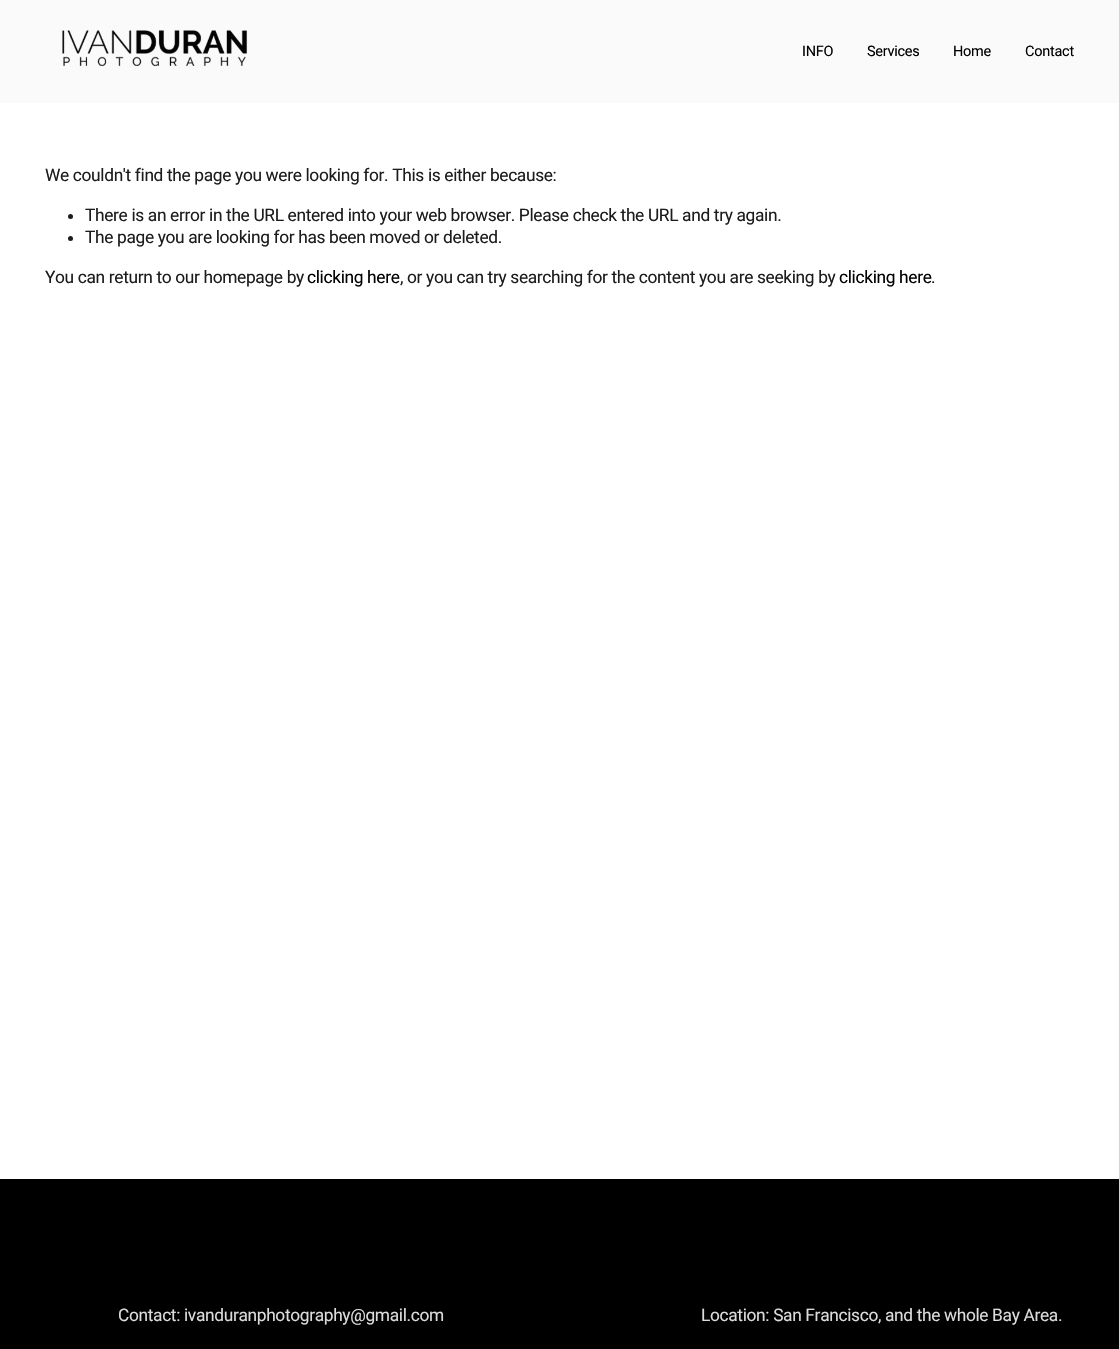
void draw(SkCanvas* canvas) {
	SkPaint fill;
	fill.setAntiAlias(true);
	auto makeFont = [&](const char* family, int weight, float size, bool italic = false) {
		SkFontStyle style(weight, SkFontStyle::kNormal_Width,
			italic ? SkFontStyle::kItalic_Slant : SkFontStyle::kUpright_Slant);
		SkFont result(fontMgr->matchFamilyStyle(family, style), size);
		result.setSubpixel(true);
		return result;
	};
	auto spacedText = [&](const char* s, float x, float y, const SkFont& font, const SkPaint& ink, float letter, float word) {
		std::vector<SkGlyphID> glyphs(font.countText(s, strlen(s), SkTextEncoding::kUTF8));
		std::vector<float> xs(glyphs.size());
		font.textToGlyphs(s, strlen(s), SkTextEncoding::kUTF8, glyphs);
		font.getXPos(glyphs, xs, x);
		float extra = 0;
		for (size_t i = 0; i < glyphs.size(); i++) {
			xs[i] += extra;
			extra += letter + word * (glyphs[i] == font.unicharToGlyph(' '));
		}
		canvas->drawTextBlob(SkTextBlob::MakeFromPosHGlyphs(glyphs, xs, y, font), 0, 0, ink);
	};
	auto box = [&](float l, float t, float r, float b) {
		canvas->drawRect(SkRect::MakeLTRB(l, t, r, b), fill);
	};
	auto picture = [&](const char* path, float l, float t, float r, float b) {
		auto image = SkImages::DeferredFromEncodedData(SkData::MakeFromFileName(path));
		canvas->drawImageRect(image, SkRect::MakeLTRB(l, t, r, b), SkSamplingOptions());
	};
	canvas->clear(0xFFFFFFFF);
	fill.setColor(0xFFFAFAFA);
	box(0, 0, 1119, 103);
	picture("image0.png", 62, 30, 248, 67);
	fill.setColor(0xFF1C1C1C);
	canvas->drawCircle(70.5f, 216.5f, 2.5f, fill);
	canvas->drawCircle(70.5f, 238.5f, 2.5f, fill);
	fill.setColor(0xFF000000);
	box(0, 1179, 1119, 1349);
	auto font1 = makeFont("Roboto", 400, 14.5f);
	spacedText("INFO", 802, 56, font1, fill, -0.25f, 0);
	spacedText("Services", 867, 56, font1, fill, -0.25f, 0);
	spacedText("Home", 953, 56, font1, fill, -0.25f, 0);
	spacedText("Contact", 1025, 56, font1, fill, -0.25f, 0);
	auto font2 = makeFont("Roboto", 400, 17.35f);
	fill.setColor(0xFF1C1C1C);
	spacedText("We couldn't find the page you were looking for. This is either because:", 45, 181, font2, fill, -0.35f, 0);
	spacedText("There is an error in the URL entered into your web browser. Please check the URL and try again.", 85, 221, font2, fill, -0.35f, 0);
	spacedText("The page you are looking for has been moved or deleted.", 85, 243, font2, fill, -0.35f, 0);
	spacedText("You can return to our homepage by", 45, 283, font2, fill, -0.35f, 0);
	fill.setColor(0xFF000000);
	spacedText("clicking here", 307, 283, font2, fill, -0.35f, 0);
	fill.setColor(0xFF1C1C1C);
	spacedText(", or you can try searching for the content you are seeking by", 400, 283, font2, fill, -0.35f, 0);
	fill.setColor(0xFF000000);
	spacedText("clicking here", 839, 283, font2, fill, -0.35f, 0);
	fill.setColor(0xFF1C1C1C);
	spacedText(".", 931, 283, font2, fill, -0.35f, 0);
	fill.setColor(0xFFDCDCDC);
	spacedText("Contact: ivanduranphotography@gmail.com", 118, 1321, font2, fill, -0.35f, 0);
	spacedText("Location: San Francisco, and the whole Bay Area.", 701, 1321, font2, fill, -0.35f, 0);
}
